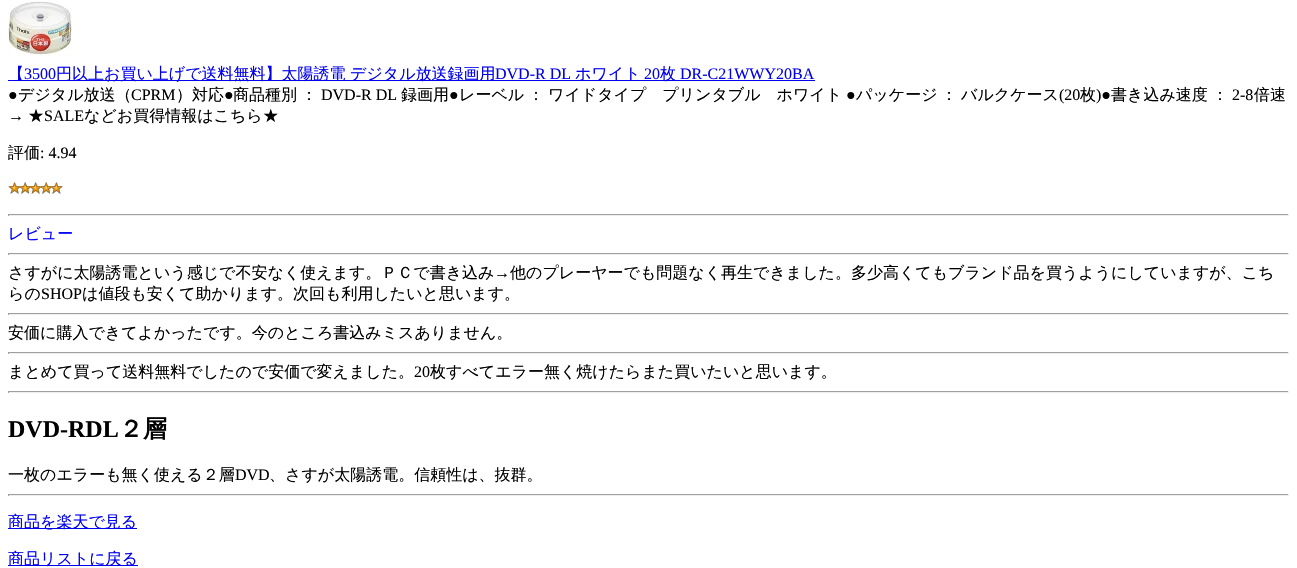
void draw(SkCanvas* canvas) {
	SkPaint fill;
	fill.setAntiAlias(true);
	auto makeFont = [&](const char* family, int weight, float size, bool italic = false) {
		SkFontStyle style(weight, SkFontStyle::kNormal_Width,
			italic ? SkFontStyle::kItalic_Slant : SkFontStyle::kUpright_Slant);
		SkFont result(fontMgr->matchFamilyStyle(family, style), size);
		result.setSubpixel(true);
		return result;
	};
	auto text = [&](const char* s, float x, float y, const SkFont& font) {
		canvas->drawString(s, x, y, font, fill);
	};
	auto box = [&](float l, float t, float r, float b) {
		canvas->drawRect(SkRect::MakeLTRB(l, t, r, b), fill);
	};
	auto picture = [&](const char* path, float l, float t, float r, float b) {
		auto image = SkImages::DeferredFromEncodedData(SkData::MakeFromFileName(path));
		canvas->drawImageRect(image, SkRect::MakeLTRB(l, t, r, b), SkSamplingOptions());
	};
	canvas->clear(0xFFFFFFFF);
	picture("image0.png", 8, 0, 72, 56);
	fill.setColor(0xFF0000EE);
	box(8, 80, 815, 81);
	picture("image1.png", 8, 182, 63, 194);
	fill.setColor(0xFF9F9F9F);
	box(8, 214, 1289, 215);
	fill.setColor(0xFFEEEEEE);
	box(1288, 214, 1289, 216);
	box(8, 215, 1289, 216);
	fill.setColor(0xFF9F9F9F);
	box(8, 214, 9, 216);
	box(8, 253, 1289, 254);
	fill.setColor(0xFFEEEEEE);
	box(1288, 253, 1289, 255);
	box(8, 254, 1289, 255);
	fill.setColor(0xFF9F9F9F);
	box(8, 253, 9, 255);
	box(8, 313, 1289, 314);
	fill.setColor(0xFFEEEEEE);
	box(1288, 313, 1289, 315);
	box(8, 314, 1289, 315);
	fill.setColor(0xFF9F9F9F);
	box(8, 313, 9, 315);
	box(8, 352, 1289, 353);
	fill.setColor(0xFFEEEEEE);
	box(1288, 352, 1289, 354);
	box(8, 353, 1289, 354);
	fill.setColor(0xFF9F9F9F);
	box(8, 352, 9, 354);
	box(8, 391, 1289, 392);
	fill.setColor(0xFFEEEEEE);
	box(1288, 391, 1289, 393);
	box(8, 392, 1289, 393);
	fill.setColor(0xFF9F9F9F);
	box(8, 391, 9, 393);
	box(8, 494, 1289, 495);
	fill.setColor(0xFFEEEEEE);
	box(1288, 494, 1289, 496);
	box(8, 495, 1289, 496);
	fill.setColor(0xFF9F9F9F);
	box(8, 494, 9, 496);
	fill.setColor(0xFF0000EE);
	box(8, 528, 137, 529);
	box(8, 565, 138, 566);
	auto font1 = makeFont("WenQuanYi Zen Hei", 500, 16);
	text("【", 8, 79, font1);
	auto font2 = makeFont("Liberation Serif", 400, 16);
	text("3500", 24, 79, font2);
	text("円以上お買い上げで送料無料】太陽誘電", 56, 79, font1);
	text("デジタル放送録画用", 350, 79, font1);
	text("DVD-R DL", 495, 79, font2);
	text("ホワイト", 575, 79, font1);
	text("20", 644, 79, font2);
	text("枚", 660, 79, font1);
	text("DR-C21WWY20BA", 680, 79, font2);
	fill.setColor(0xFF000000);
	text("●", 8, 100, font2);
	text("デジタル放送（", 18, 100, font1);
	text("CPRM", 131, 100, font2);
	text("）対応", 176, 100, font1);
	text("●", 224, 100, font2);
	text("商品種別", 233, 100, font1);
	text("：", 301, 100, font1);
	text("DVD-R DL", 321, 100, font2);
	text("録画用", 401, 100, font1);
	text("●", 449, 100, font2);
	text("レーベル", 459, 100, font1);
	text("：", 528, 100, font1);
	text("ワイドタイプ　プリンタブル　ホワイト", 548, 100, font1);
	text("●", 846, 100, font2);
	text("パッケージ", 856, 100, font1);
	text("：", 941, 100, font1);
	text("バルクケース", 961, 100, font1);
	text("(20", 1059, 100, font2);
	text("枚", 1080, 100, font1);
	text(")●", 1096, 100, font2);
	text("書き込み速度", 1111, 100, font1);
	text("：", 1212, 100, font1);
	text("2-8", 1232, 100, font2);
	text("倍速", 1254, 100, font1);
	text("→", 8, 121, font2);
	text("★", 28, 121, font1);
	text("SALE", 44, 121, font2);
	text("などお買得情報はこちら★", 84, 121, font1);
	text("評価", 8, 158, font1);
	text(": 4.94", 40, 158, font2);
	fill.setColor(0xFF0000FF);
	text("レビュー", 8, 239, font1);
	fill.setColor(0xFF000000);
	text("さすがに太陽誘電という感じで不安なく使えます。ＰＣで書き込み", 8, 278, font1);
	text("→", 494, 278, font2);
	text("他のプレーヤーでも問題なく再生できました。多少高くてもブランド品を買うようにしていますが、こち", 510, 278, font1);
	text("らの", 8, 299, font1);
	text("SHOP", 41, 299, font2);
	text("は値段も安くて助かります。次回も利用したいと思います。", 82, 299, font1);
	text("安価に購入できてよかったです。今のところ書込みミスありません。", 8, 338, font1);
	text("まとめて買って送料無料でしたので安価で変えました。", 8, 377, font1);
	text("20", 414, 377, font2);
	text("枚すべてエラー無く焼けたらまた買いたいと思います。", 430, 377, font1);
	auto font3 = makeFont("Liberation Serif", 700, 24);
	text("DVD-RDL", 8, 437, font3);
	auto font4 = makeFont("WenQuanYi Zen Hei", 700, 24);
	text("２層", 119, 437, font4);
	text("一枚のエラーも無く使える２層", 8, 480, font1);
	text("DVD", 235, 480, font2);
	text("、さすが太陽誘電。信頼性は、抜群。", 269, 480, font1);
	fill.setColor(0xFF0000EE);
	text("商品を楽天で見る", 8, 527, font1);
	text("商品リストに戻る", 8, 564, font1);
}
